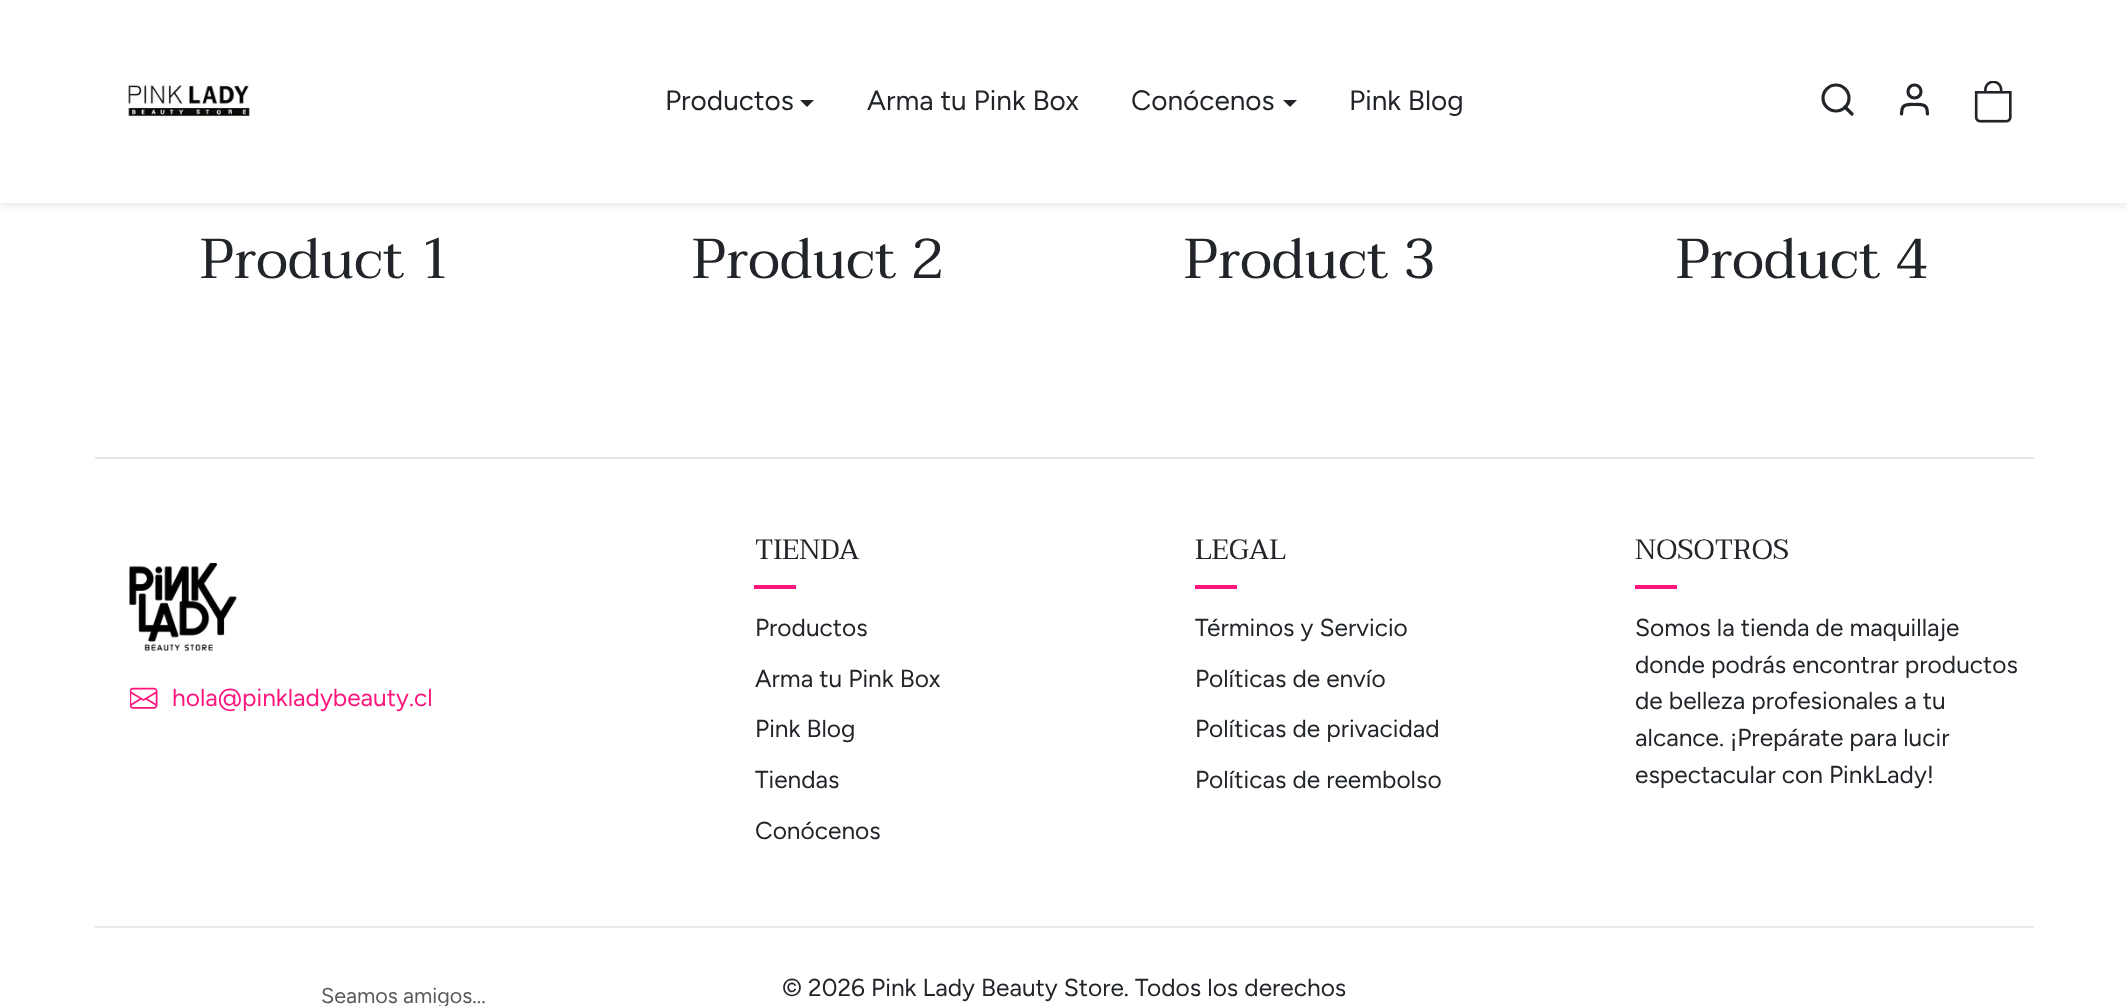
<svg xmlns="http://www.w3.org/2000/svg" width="2127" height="1006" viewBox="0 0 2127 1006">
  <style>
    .t1 { font: 28px Figtree; fill: #212529; }
    .t2 { font: 56px Taviraj; fill: #212529; }
    .t3 { font: 24.5px Figtree; fill: #ff157d; }
    .t4 { font: 28px Taviraj; fill: #212529; }
    .t5 { font: 24.5px Figtree; fill: #212529; }
    .t6 { font: 21.5px Figtree; fill: #595c5f; }
  </style>
  <rect width="100%" height="100%" fill="#fff"/>
  <rect x="0" y="4" width="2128" height="203" fill="#00000012" filter="blur(3.5px)"/>
  <rect x="0" y="0" width="2127" height="203" fill="#fff"/>
  <image x="128" y="83" width="122" height="36" href="images/1.png"/>
  <text x="665" y="110" class="t1">Productos</text>
  <path d="M800 100H814L807 107Z" fill="#212529"/>
  <text x="867" y="110" class="t1">Arma tu Pink Box</text>
  <text x="1131" y="110" class="t1">Conócenos</text>
  <path d="M1283 100H1297L1290 107Z" fill="#212529"/>
  <text x="1349" y="110" class="t1">Pink Blog</text>
  <circle cx="1836" cy="98" r="13" fill="none" stroke="#212529" stroke-width="3.2"/>
  <path d="M1852 114L1845 107" fill="none" stroke="#212529" stroke-width="3.2" stroke-linecap="round" stroke-linejoin="round"/>
  <path d="M1927.5 114L1927 109.5C1926 103.5 1919 104.5 1914.5 104.5C1910 104.5 1903 103.5 1902 109.5L1901.5 114" fill="none" stroke="#212529" stroke-width="3.2" stroke-linecap="round" stroke-linejoin="round"/>
  <circle cx="1914.5" cy="91.5" r="6.5" fill="none" stroke="#212529" stroke-width="3.2"/>
  <image x="1974" y="81" width="38" height="42" href="images/2.png"/>
  <text x="200" y="278" class="t2">Product 1</text>
  <text x="692" y="278" class="t2">Product 2</text>
  <text x="1184" y="278" class="t2">Product 3</text>
  <text x="1676" y="278" class="t2">Product 4</text>
  <rect x="95" y="457" width="1939" height="2" fill="#e6e6e6"/>
  <image x="129" y="563" width="108" height="88" href="images/3.png"/>
  <image x="130" y="687" width="28" height="22" href="images/4.png"/>
  <text x="172" y="706" class="t3">hola@pinkladybeauty.cl</text>
  <text x="755" y="559" class="t4">TIENDA</text>
  <rect x="754" y="585" width="42" height="4" fill="#ff157d"/>
  <text x="755" y="636" class="t5">Productos</text>
  <text x="755" y="687" class="t5">Arma tu Pink Box</text>
  <text x="755" y="737" class="t5">Pink Blog</text>
  <text x="755" y="788" class="t5">Tiendas</text>
  <text x="755" y="839" class="t5">Conócenos</text>
  <text x="1195" y="559" class="t4">LEGAL</text>
  <rect x="1195" y="585" width="42" height="4" fill="#ff157d"/>
  <text x="1195" y="636" class="t5">Términos y Servicio</text>
  <text x="1195" y="687" class="t5">Políticas de envío</text>
  <text x="1195" y="737" class="t5">Políticas de privacidad</text>
  <text x="1195" y="788" class="t5">Políticas de reembolso</text>
  <text x="1635" y="559" class="t4">NOSOTROS</text>
  <rect x="1635" y="585" width="42" height="4" fill="#ff157d"/>
  <text x="1635" y="636" class="t5">Somos la tienda de maquillaje</text>
  <text x="1635" y="673" class="t5">donde podrás encontrar productos</text>
  <text x="1635" y="709" class="t5">de belleza profesionales a tu</text>
  <text x="1635" y="746" class="t5">alcance. ¡Prepárate para lucir</text>
  <text x="1635" y="783" class="t5">espectacular con PinkLady!</text>
  <rect x="95" y="926" width="1939" height="2" fill="#e9e9ea"/>
  <text x="321" y="1003" class="t6">Seamos amigos...</text>
  <text x="782" y="996" class="t5">© 2026 Pink Lady Beauty Store. Todos los derechos</text>
</svg>
